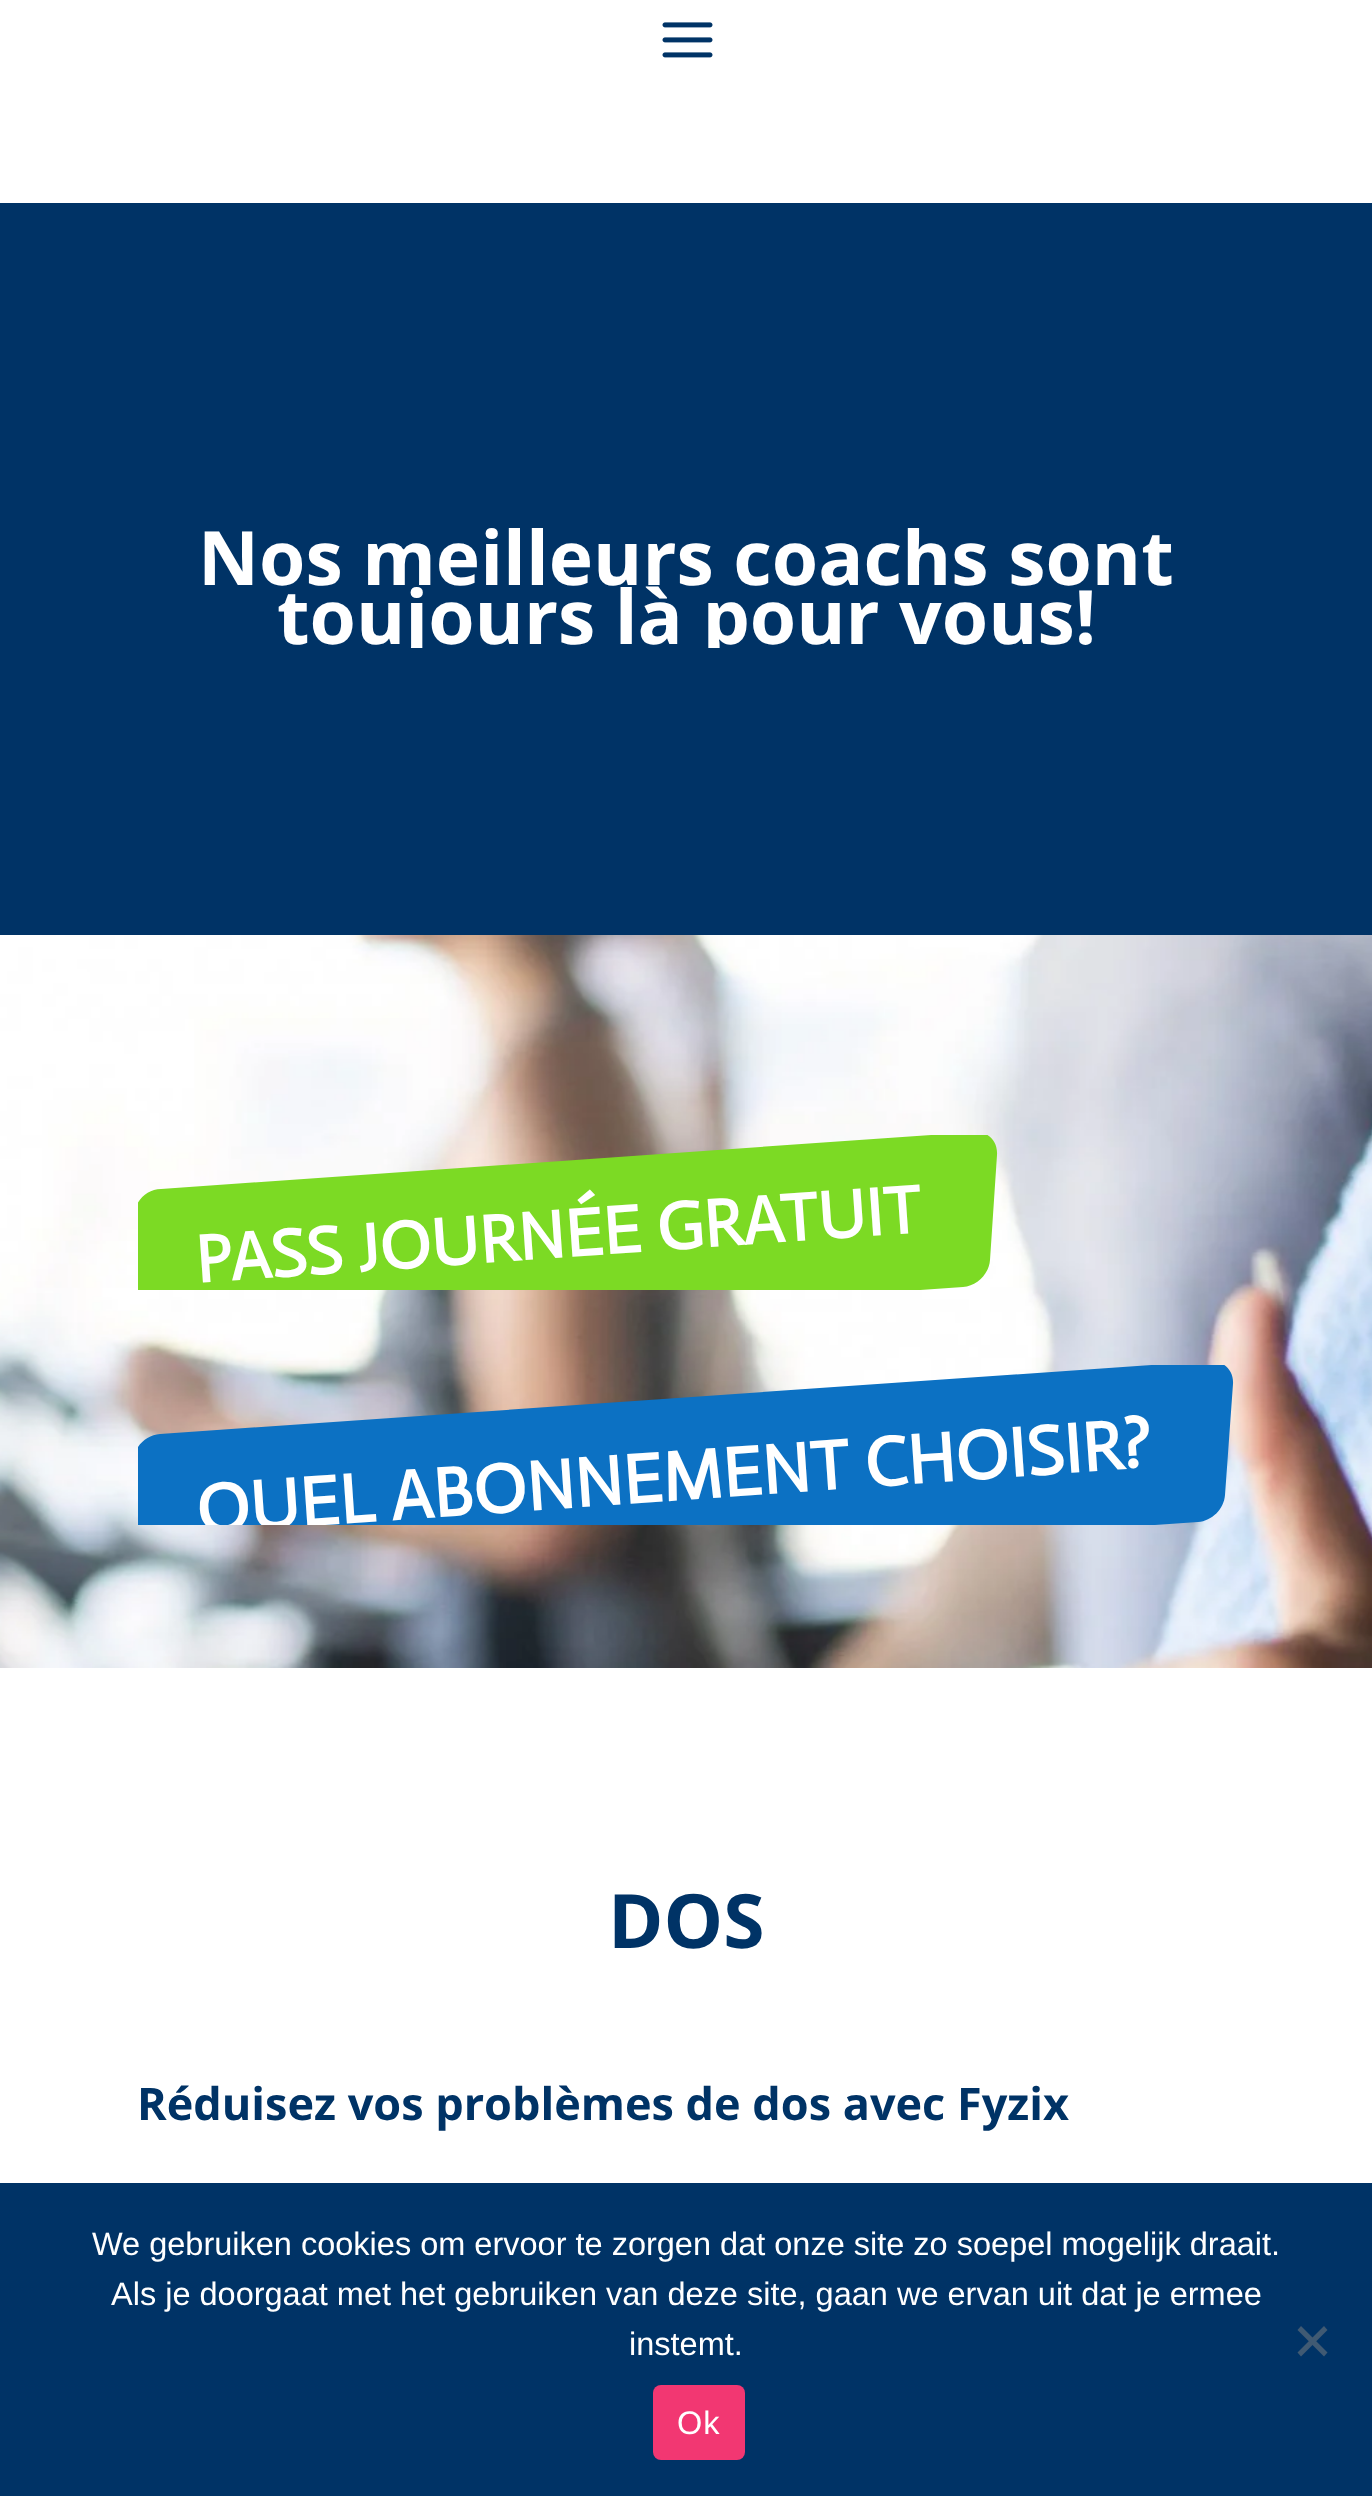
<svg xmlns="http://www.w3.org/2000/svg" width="1372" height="2496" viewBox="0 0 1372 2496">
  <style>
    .t1 { font: bold 75px Open Sans; fill: #fff; }
    .t2 { font: bold 67.75px Actor; fill: #fff; }
    .t3 { font: bold 70.2px Actor; fill: #fff; }
    .t4 { font: bold 75px Open Sans; fill: #036; }
    .t5 { font: bold 45px Open Sans; fill: #036; }
    .t6 { font: 32.5px Liberation Sans; fill: #fff; }
    .t7 { font: 32.5px Liberation Sans; letter-spacing: 1px; fill: #fff; }
  </style>
  <defs>
    <clipPath id="clip1"><rect x="138" y="528" width="1097" height="120"/></clipPath>
    <clipPath id="clip2"><rect x="138" y="1135" width="1097" height="155"/></clipPath>
    <clipPath id="clip3"><rect x="138" y="1365" width="1097" height="160"/></clipPath>
  </defs>
  <rect width="100%" height="100%" fill="#fff"/>
  <image x="662" y="22" width="51" height="36" href="images/1.png"/>
  <rect x="0" y="203" width="1372" height="732" fill="#036"/>
  <text x="198" y="585" class="t1">Nos meilleurs coachs sont</text>
  <g clip-path="url(#clip1)">
    <text x="277" y="644" class="t1">toujours là pour vous!</text>
  </g>
  <image x="0" y="935" width="1372" height="733" href="images/2.png"/>
  <g clip-path="url(#clip2)">
    <path d="M161 1189L974 1132C988 1131 998 1141 997 1155L990 1260C989 1274 977 1286 963 1287L150 1344C136 1345 126 1334 127 1320L134 1215C135 1201 147 1189 161 1189Z" fill="#7cda24"/>
  </g>
  <text x="197" y="1283" transform="rotate(-4 197 1283)" class="t2">PASS JOURNÉE GRATUIT</text>
  <g clip-path="url(#clip3)">
    <path d="M160 1434L1209 1361C1223 1360 1234 1370 1233 1384L1225 1495C1224 1509 1212 1521 1198 1522L149 1595C135 1596 124 1585 125 1572L133 1461C134 1447 146 1435 160 1434Z" fill="#0c71c3"/>
    <text x="198" y="1534" transform="rotate(-4 198 1534)" class="t3">QUEL ABONNEMENT CHOISIR?</text>
  </g>
  <text x="608" y="1948" class="t4">DOS</text>
  <text x="137" y="2120" class="t5">Réduisez vos problèmes de dos avec Fyzix</text>
  <rect x="0" y="2183" width="1372" height="313" fill="#036"/>
  <text x="92" y="2255" class="t6">We gebruiken cookies om ervoor te zorgen dat onze site zo soepel mogelijk draait.</text>
  <text x="111" y="2305" class="t6">Als je doorgaat met het gebruiken van deze site, gaan we ervan uit dat je ermee</text>
  <text x="629" y="2355" class="t6">instemt.</text>
  <path d="M1324 2326L1327.5 2330L1301 2356.5L1297.5 2352.5Z" fill="#405a73"/>
  <path d="M1297.5 2330L1301 2326L1327.5 2352.5L1324 2356.5Z" fill="#405a73"/>
  <rect x="653" y="2385" width="92" height="75" rx="8" fill="#f23772"/>
  <text x="677" y="2434" class="t7">Ok</text>
</svg>
